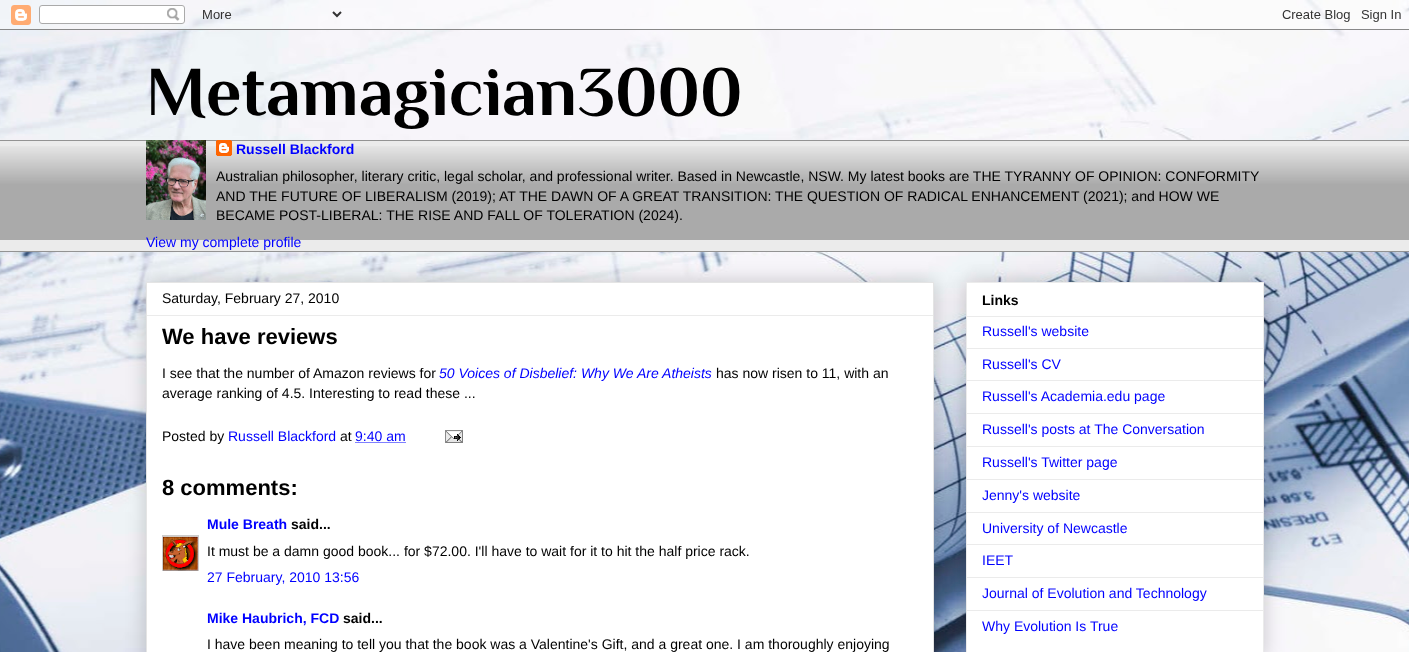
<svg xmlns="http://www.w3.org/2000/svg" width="1409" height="652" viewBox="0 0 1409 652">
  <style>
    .t1 { font: bold 70px Philosopher; fill: #000; }
    .t2 { font: bold 14px Liberation Sans; fill: #00f; }
    .t3 { font: 14px Liberation Sans; fill: #000; }
    .t4 { font: 14px Liberation Sans; fill: #00f; }
    .t5 { font: bold 22px Liberation Sans; fill: #000; }
    .t6 { font: italic 14px Liberation Sans; fill: #00f; }
    .t7 { font: bold 14px Liberation Sans; fill: #000; }
  </style>
  <defs>
    <clipPath id="clip1"><rect x="162" y="535" width="37" height="36"/></clipPath>
  </defs>
  <rect width="100%" height="100%" fill="#fff"/>
  <image x="0" y="0" width="1409" height="652" href="images/1.png"/>
  <image x="0" y="0" width="1409" height="30" href="images/2.png"/>
  <text x="146" y="115" class="t1">Metamagician3000</text>
  <rect x="0" y="141" width="1409" height="110" fill="#ebebeb"/>
  <image x="0" y="146" width="1409" height="94" href="images/3.png"/>
  <rect x="0" y="140" width="1409" height="1" fill="#939393"/>
  <image x="146" y="140" width="60" height="80" href="images/4.png"/>
  <image x="216" y="140" width="16" height="16" href="images/5.png"/>
  <text x="236" y="154" class="t2">Russell Blackford</text>
  <text x="216" y="181" class="t3">Australian philosopher, literary critic, legal scholar, and professional writer. Based in Newcastle, NSW. My latest books are THE TYRANNY OF OPINION: CONFORMITY</text>
  <text x="216" y="201" class="t3">AND THE FUTURE OF LIBERALISM (2019); AT THE DAWN OF A GREAT TRANSITION: THE QUESTION OF RADICAL ENHANCEMENT (2021); and HOW WE</text>
  <text x="216" y="220" class="t3">BECAME POST-LIBERAL: THE RISE AND FALL OF TOLERATION (2024).</text>
  <text x="146" y="247" class="t4">View my complete profile</text>
  <rect x="0" y="251" width="1409" height="1" fill="#939393"/>
  <rect x="146" y="282" width="788" height="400" fill="#00000033" filter="blur(10px)"/>
  <rect x="146.5" y="282.5" width="787" height="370" fill="#fff" stroke="#e4e4e4"/>
  <text x="162" y="303" class="t3">Saturday, February 27, 2010</text>
  <rect x="147" y="315" width="786" height="1" fill="#ebebeb"/>
  <text x="162" y="344" class="t5">We have reviews</text>
  <text x="162" y="378" class="t3">I see that the number of Amazon reviews for</text>
  <text x="439" y="378" class="t6">50 Voices of Disbelief: Why We Are Atheists</text>
  <text x="716" y="378" class="t3">has now risen to 11, with an</text>
  <text x="162" y="398" class="t3">average ranking of 4.5. Interesting to read these ...</text>
  <text x="162" y="441" class="t3">Posted by</text>
  <text x="228" y="441" class="t4">Russell Blackford</text>
  <text x="340" y="441" class="t3">at</text>
  <text x="355" y="441" class="t4">9:40 am</text>
  <path d="M355.5 442.5H406" fill="none" stroke="#00f" stroke-dasharray="1 1"/>
  <image x="445" y="430" width="18" height="13" href="images/6.png"/>
  <text x="162" y="495" class="t5">8 comments:</text>
  <text x="207" y="529" class="t2">Mule Breath</text>
  <text x="291" y="529" class="t7">said...</text>
  <g clip-path="url(#clip1)">
    <rect x="162.5" y="535.5" width="36" height="36" fill="none" stroke="#ccc"/>
  </g>
  <image x="163" y="536" width="35" height="35" href="images/7.png"/>
  <text x="207" y="556" class="t3">It must be a damn good book... for $72.00. I'll have to wait for it to hit the half price rack.</text>
  <text x="207" y="582" class="t4">27 February, 2010 13:56</text>
  <text x="207" y="623" class="t2">Mike Haubrich, FCD</text>
  <text x="343" y="623" class="t7">said...</text>
  <text x="207" y="649" class="t3">I have been meaning to tell you that the book was a Valentine's Gift, and a great one. I am thoroughly enjoying</text>
  <rect x="966" y="282" width="298" height="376" fill="#00000033" filter="blur(10px)"/>
  <rect x="966.5" y="282.5" width="297" height="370" fill="#fff" stroke="#ebebeb"/>
  <text x="982" y="305" class="t7">Links</text>
  <rect x="967" y="316" width="296" height="1" fill="#ebebeb"/>
  <text x="982" y="336" class="t4">Russell's website</text>
  <rect x="967" y="348" width="296" height="1" fill="#ebebeb"/>
  <text x="982" y="369" class="t4">Russell's CV</text>
  <rect x="967" y="380" width="296" height="1" fill="#ebebeb"/>
  <text x="982" y="401" class="t4">Russell's Academia.edu page</text>
  <rect x="967" y="413" width="296" height="1" fill="#ebebeb"/>
  <text x="982" y="434" class="t4">Russell's posts at The Conversation</text>
  <rect x="967" y="446" width="296" height="1" fill="#ebebeb"/>
  <text x="982" y="467" class="t4">Russell's Twitter page</text>
  <rect x="967" y="479" width="296" height="1" fill="#ebebeb"/>
  <text x="982" y="500" class="t4">Jenny's website</text>
  <rect x="967" y="512" width="296" height="1" fill="#ebebeb"/>
  <text x="982" y="533" class="t4">University of Newcastle</text>
  <rect x="967" y="544" width="296" height="1" fill="#ebebeb"/>
  <text x="982" y="565" class="t4">IEET</text>
  <rect x="967" y="577" width="296" height="1" fill="#ebebeb"/>
  <text x="982" y="598" class="t4">Journal of Evolution and Technology</text>
  <rect x="967" y="610" width="296" height="1" fill="#ebebeb"/>
  <text x="982" y="631" class="t4">Why Evolution Is True</text>
</svg>
